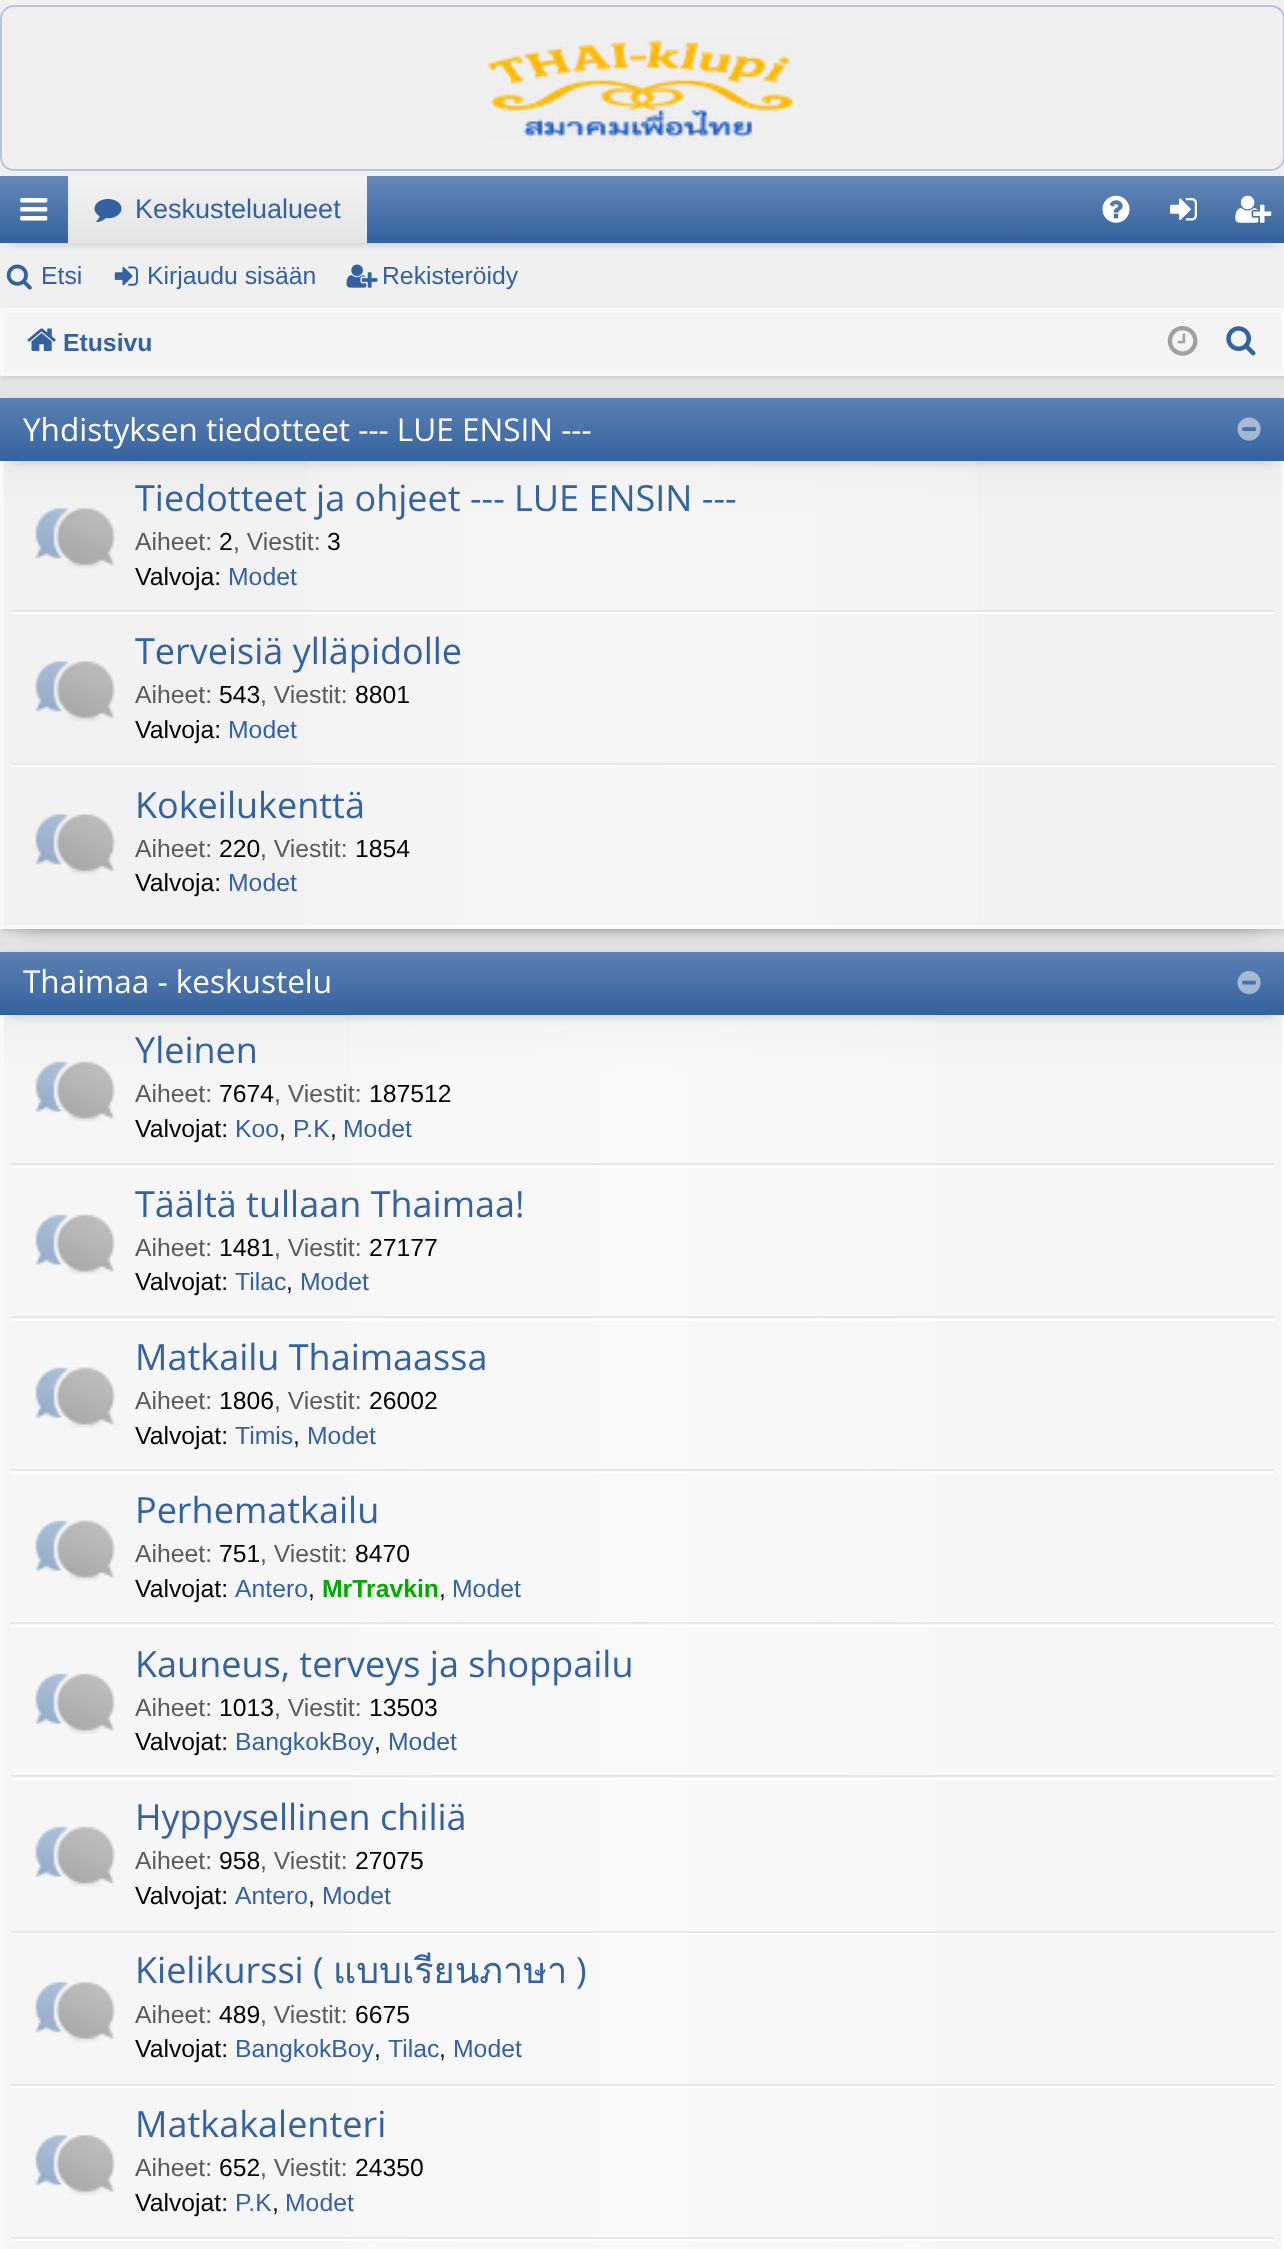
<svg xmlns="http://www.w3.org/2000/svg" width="1284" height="2249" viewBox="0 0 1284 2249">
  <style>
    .t1 { font: 27px Liberation Sans; fill: #3462a0; }
    .t2 { font: 24.75px Liberation Sans; fill: #3462a0; }
    .t3 { font: bold 24.75px Liberation Sans; fill: #3462a0; }
    .t4 { font: 31.5px Open Sans; fill: #fff; }
    .t5 { font: 36px Open Sans; fill: #3462a0; }
    .t6 { font: 24.75px Liberation Sans; fill: #5b5b5b; }
    .t7 { font: 24.75px Liberation Sans; fill: #000; }
    .t8 { font: 24.75px Liberation Sans; fill: #141414; }
    .t9 { font: bold 24.75px Liberation Sans; fill: #0a0; }
    .t10 { font: 36px Loma; fill: #3462a0; }
  </style>
  <defs>
    <linearGradient id="g1" gradientUnits="userSpaceOnUse" x1="642" y1="175" x2="642" y2="243"><stop offset="0" stop-color="#6789b8"/><stop offset="1" stop-color="#3462a0"/></linearGradient>
    <linearGradient id="g2" gradientUnits="userSpaceOnUse" x1="217" y1="175" x2="217" y2="243"><stop offset="0" stop-color="#f2f2f2"/><stop offset="1" stop-color="#e4e4e4"/></linearGradient>
    <linearGradient id="g3" gradientUnits="userSpaceOnUse" x1="642" y1="400" x2="642" y2="927"><stop offset="0" stop-color="#eaeaea"/><stop offset="0.04" stop-color="#e8e8e8"/><stop offset="0.21" stop-color="#f2f2f2"/></linearGradient>
    <linearGradient id="g4" gradientUnits="userSpaceOnUse" x1="2.2" y1="664" x2="1283" y2="664"><stop offset="0" stop-color="#fff" stop-opacity="0"/><stop offset="0.5" stop-color="#fff" stop-opacity="0.3"/><stop offset="1" stop-color="#fff" stop-opacity="0"/></linearGradient>
    <linearGradient id="g5" gradientUnits="userSpaceOnUse" x1="642" y1="398" x2="642" y2="461"><stop offset="0" stop-color="#5d81b3"/><stop offset="1" stop-color="#3462a0"/></linearGradient>
    <linearGradient id="g6" gradientUnits="userSpaceOnUse" x1="642" y1="954" x2="642" y2="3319"><stop offset="0" stop-color="#eee"/><stop offset="0.01" stop-color="#ebebeb"/><stop offset="0.05" stop-color="#f6f6f6"/></linearGradient>
    <linearGradient id="g7" gradientUnits="userSpaceOnUse" x1="2.2" y1="2136" x2="1283" y2="2136"><stop offset="0" stop-color="#fff" stop-opacity="0"/><stop offset="0.5" stop-color="#fff" stop-opacity="0.3"/><stop offset="1" stop-color="#fff" stop-opacity="0"/></linearGradient>
    <linearGradient id="g8" gradientUnits="userSpaceOnUse" x1="642" y1="952" x2="642" y2="1015"><stop offset="0" stop-color="#5d81b3"/><stop offset="1" stop-color="#3462a0"/></linearGradient>
  </defs>
  <rect width="100%" height="100%" fill="#f0f0f0"/>
  <rect x="1" y="6" width="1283" height="164" rx="13" fill="none" stroke="#b8c5d8" stroke-width="2"/>
  <image x="487" y="37" width="308" height="104" href="images/1.png"/>
  <rect x="11" y="198" width="1263" height="45" fill="#00000033" filter="blur(5.5px)"/>
  <rect x="0" y="176" width="1284" height="67" fill="url(#g1)"/>
  <image x="20" y="198" width="28" height="23" href="images/2.png"/>
  <rect x="68" y="176" width="299" height="67" fill="url(#g2)"/>
  <image x="94" y="199" width="28" height="24" href="images/3.png"/>
  <text x="135" y="218" class="t1">Keskustelualueet</text>
  <image x="1102" y="195" width="28" height="28" href="images/4.png"/>
  <image x="1170" y="198" width="27" height="23" href="images/5.png"/>
  <image x="1235" y="195" width="37" height="28" href="images/6.png"/>
  <image x="6" y="264" width="26" height="26" href="images/7.png"/>
  <text x="41" y="284" class="t2">Etsi</text>
  <image x="114" y="266" width="24" height="20" href="images/8.png"/>
  <text x="147" y="284" class="t2">Kirjaudu sisään</text>
  <image x="346" y="264" width="32" height="24" href="images/9.png"/>
  <text x="382" y="284" class="t2">Rekisteröidy</text>
  <rect x="0" y="376" width="1284" height="576" fill="#e4e4e4"/>
  <rect x="2" y="311" width="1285" height="67" fill="#0000001a" filter="blur(2px)"/>
  <rect x="2" y="310" width="1281" height="62" fill="#f4f4f4"/>
  <rect x="3" y="312" width="1279" height="61" fill="none" stroke="#fafafa" stroke-width="2"/>
  <rect x="1" y="309" width="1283" height="66" fill="none" stroke="#f9f9f9" stroke-width="2"/>
  <image x="27" y="328" width="29" height="23" href="images/10.png"/>
  <text x="63" y="351" class="t3">Etusivu</text>
  <image x="1167" y="326" width="31" height="30" href="images/11.png"/>
  <image x="1226" y="326" width="30" height="30" href="images/12.png"/>
  <rect x="23" y="443" width="1239" height="486" fill="#00000033" filter="blur(11px)"/>
  <rect x="2" y="401" width="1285" height="531" fill="#00000026" filter="blur(3.5px)"/>
  <rect x="2" y="461" width="1281" height="466" fill="url(#g3)"/>
  <rect x="308" y="461" width="669" height="466" fill="url(#g4)"/>
  <rect x="3" y="402" width="1279" height="524" fill="none" stroke="#ffffff80" stroke-width="2"/>
  <rect x="1" y="399" width="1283" height="529" fill="none" stroke="#f9f9f9" stroke-width="2"/>
  <rect x="11" y="421" width="1263" height="40" fill="#00000033" filter="blur(5.5px)"/>
  <rect x="0" y="398" width="1284" height="63" fill="url(#g5)"/>
  <text x="23" y="441" class="t4">Yhdistyksen tiedotteet --- LUE ENSIN ---</text>
  <image x="1237" y="417" width="24" height="24" href="images/13.png"/>
  <rect x="11" y="610" width="1263" height="2" fill="#e7e7e7"/>
  <image x="35" y="508" width="80" height="61" href="images/14.png"/>
  <text x="135" y="511" class="t5">Tiedotteet ja ohjeet --- LUE ENSIN ---</text>
  <text x="135" y="550" class="t6">Aiheet:</text>
  <text x="219" y="550" class="t7">2</text>
  <text x="233" y="550" class="t6">, Viestit:</text>
  <text x="327" y="550" class="t7">3</text>
  <text x="135" y="585" class="t7">Valvoja:</text>
  <text x="228" y="585" class="t2">Modet</text>
  <rect x="11" y="612" width="1263" height="2" fill="#fff"/>
  <rect x="11" y="763" width="1263" height="2" fill="#e7e7e7"/>
  <image x="35" y="661" width="80" height="61" href="images/14.png"/>
  <text x="135" y="664" class="t5">Terveisiä ylläpidolle</text>
  <text x="135" y="703" class="t6">Aiheet:</text>
  <text x="219" y="703" class="t7">543</text>
  <text x="260" y="703" class="t6">, Viestit:</text>
  <text x="355" y="703" class="t7">8801</text>
  <text x="135" y="738" class="t7">Valvoja:</text>
  <text x="228" y="738" class="t2">Modet</text>
  <rect x="11" y="765" width="1263" height="2" fill="#fff"/>
  <image x="35" y="814" width="80" height="61" href="images/15.png"/>
  <text x="135" y="818" class="t5">Kokeilukenttä</text>
  <text x="135" y="857" class="t6">Aiheet:</text>
  <text x="219" y="857" class="t7">220</text>
  <text x="260" y="857" class="t6">, Viestit:</text>
  <text x="355" y="857" class="t7">1854</text>
  <text x="135" y="891" class="t7">Valvoja:</text>
  <text x="228" y="891" class="t2">Modet</text>
  <rect x="2" y="954" width="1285" height="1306" fill="#00000026" filter="blur(3.5px)"/>
  <rect x="2" y="1015" width="1281" height="1234" fill="url(#g6)"/>
  <rect x="350" y="1015" width="586" height="1234" fill="url(#g7)"/>
  <rect x="3" y="955" width="1279" height="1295" fill="none" stroke="#ffffff80" stroke-width="2"/>
  <rect x="1" y="953" width="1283" height="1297" fill="none" stroke="#f9f9f9" stroke-width="2"/>
  <rect x="11" y="974" width="1263" height="41" fill="#00000033" filter="blur(5.5px)"/>
  <rect x="0" y="952" width="1284" height="63" fill="url(#g8)"/>
  <text x="23" y="993" class="t4">Thaimaa - keskustelu</text>
  <image x="1237" y="971" width="24" height="24" href="images/16.png"/>
  <rect x="11" y="1163" width="1263" height="2" fill="#e7e7e7"/>
  <image x="35" y="1061" width="80" height="61" href="images/17.png"/>
  <text x="135" y="1063" class="t5">Yleinen</text>
  <text x="135" y="1102" class="t6">Aiheet:</text>
  <text x="219" y="1102" class="t7">7674</text>
  <text x="274" y="1102" class="t6">, Viestit:</text>
  <text x="369" y="1102" class="t7">187512</text>
  <text x="135" y="1137" class="t7">Valvojat:</text>
  <text x="235" y="1137" class="t2">Koo</text>
  <text x="279" y="1137" class="t8">,</text>
  <text x="293" y="1137" class="t2">P.K</text>
  <text x="330" y="1137" class="t8">,</text>
  <text x="343" y="1137" class="t2">Modet</text>
  <rect x="11" y="1166" width="1263" height="2" fill="#fff"/>
  <rect x="11" y="1316" width="1263" height="2" fill="#e7e7e7"/>
  <image x="35" y="1214" width="80" height="61" href="images/18.png"/>
  <text x="135" y="1217" class="t5">Täältä tullaan Thaimaa!</text>
  <text x="135" y="1256" class="t6">Aiheet:</text>
  <text x="219" y="1256" class="t7">1481</text>
  <text x="274" y="1256" class="t6">, Viestit:</text>
  <text x="369" y="1256" class="t7">27177</text>
  <text x="135" y="1290" class="t7">Valvojat:</text>
  <text x="235" y="1290" class="t2">Tilac</text>
  <text x="286" y="1290" class="t8">,</text>
  <text x="300" y="1290" class="t2">Modet</text>
  <rect x="11" y="1319" width="1263" height="2" fill="#fff"/>
  <rect x="11" y="1469" width="1263" height="2" fill="#e7e7e7"/>
  <image x="35" y="1367" width="80" height="61" href="images/18.png"/>
  <text x="135" y="1370" class="t5">Matkailu Thaimaassa</text>
  <text x="135" y="1409" class="t6">Aiheet:</text>
  <text x="219" y="1409" class="t7">1806</text>
  <text x="274" y="1409" class="t6">, Viestit:</text>
  <text x="369" y="1409" class="t7">26002</text>
  <text x="135" y="1444" class="t7">Valvojat:</text>
  <text x="235" y="1444" class="t2">Timis</text>
  <text x="293" y="1444" class="t8">,</text>
  <text x="307" y="1444" class="t2">Modet</text>
  <rect x="11" y="1472" width="1263" height="2" fill="#fff"/>
  <rect x="11" y="1622" width="1263" height="2" fill="#e7e7e7"/>
  <image x="35" y="1520" width="80" height="61" href="images/18.png"/>
  <text x="135" y="1523" class="t5">Perhematkailu</text>
  <text x="135" y="1562" class="t6">Aiheet:</text>
  <text x="219" y="1562" class="t7">751</text>
  <text x="260" y="1562" class="t6">, Viestit:</text>
  <text x="355" y="1562" class="t7">8470</text>
  <text x="135" y="1597" class="t7">Valvojat:</text>
  <text x="235" y="1597" class="t2">Antero</text>
  <text x="308" y="1597" class="t8">,</text>
  <text x="322" y="1597" class="t9">MrTravkin</text>
  <text x="439" y="1597" class="t8">,</text>
  <text x="452" y="1597" class="t2">Modet</text>
  <rect x="11" y="1625" width="1263" height="2" fill="#fff"/>
  <rect x="11" y="1775" width="1263" height="2" fill="#e7e7e7"/>
  <image x="35" y="1673" width="80" height="61" href="images/19.png"/>
  <text x="135" y="1677" class="t5">Kauneus, terveys ja shoppailu</text>
  <text x="135" y="1716" class="t6">Aiheet:</text>
  <text x="219" y="1716" class="t7">1013</text>
  <text x="274" y="1716" class="t6">, Viestit:</text>
  <text x="369" y="1716" class="t7">13503</text>
  <text x="135" y="1750" class="t7">Valvojat:</text>
  <text x="235" y="1750" class="t2">BangkokBoy</text>
  <text x="374" y="1750" class="t8">,</text>
  <text x="388" y="1750" class="t2">Modet</text>
  <rect x="11" y="1778" width="1263" height="2" fill="#fff"/>
  <rect x="11" y="1931" width="1263" height="2" fill="#e7e7e7"/>
  <image x="35" y="1826" width="80" height="61" href="images/18.png"/>
  <text x="135" y="1830" class="t5">Hyppysellinen chiliä</text>
  <text x="135" y="1869" class="t6">Aiheet:</text>
  <text x="219" y="1869" class="t7">958</text>
  <text x="260" y="1869" class="t6">, Viestit:</text>
  <text x="355" y="1869" class="t7">27075</text>
  <text x="135" y="1904" class="t7">Valvojat:</text>
  <text x="235" y="1904" class="t2">Antero</text>
  <text x="308" y="1904" class="t8">,</text>
  <text x="322" y="1904" class="t2">Modet</text>
  <rect x="11" y="1933" width="1263" height="2" fill="#fff"/>
  <rect x="11" y="2084" width="1263" height="2" fill="#e7e7e7"/>
  <image x="35" y="1981" width="80" height="62" href="images/20.png"/>
  <text x="135" y="1983" class="t5">Kielikurssi (</text>
  <text x="333" y="1983" class="t10">แบบเรียนภาษา</text>
  <text x="576" y="1983" class="t5">)</text>
  <text x="135" y="2023" class="t6">Aiheet:</text>
  <text x="219" y="2023" class="t7">489</text>
  <text x="260" y="2023" class="t6">, Viestit:</text>
  <text x="355" y="2023" class="t7">6675</text>
  <text x="135" y="2057" class="t7">Valvojat:</text>
  <text x="235" y="2057" class="t2">BangkokBoy</text>
  <text x="374" y="2057" class="t8">,</text>
  <text x="388" y="2057" class="t2">Tilac</text>
  <text x="439" y="2057" class="t8">,</text>
  <text x="453" y="2057" class="t2">Modet</text>
  <rect x="11" y="2086" width="1263" height="2" fill="#fff"/>
  <rect x="11" y="2237" width="1263" height="2" fill="#e7e7e7"/>
  <image x="35" y="2134" width="80" height="62" href="images/20.png"/>
  <text x="135" y="2137" class="t5">Matkakalenteri</text>
  <text x="135" y="2176" class="t6">Aiheet:</text>
  <text x="219" y="2176" class="t7">652</text>
  <text x="260" y="2176" class="t6">, Viestit:</text>
  <text x="355" y="2176" class="t7">24350</text>
  <text x="135" y="2211" class="t7">Valvojat:</text>
  <text x="235" y="2211" class="t2">P.K</text>
  <text x="272" y="2211" class="t8">,</text>
  <text x="285" y="2211" class="t2">Modet</text>
  <rect x="11" y="2239" width="1263" height="2" fill="#fff"/>
</svg>
